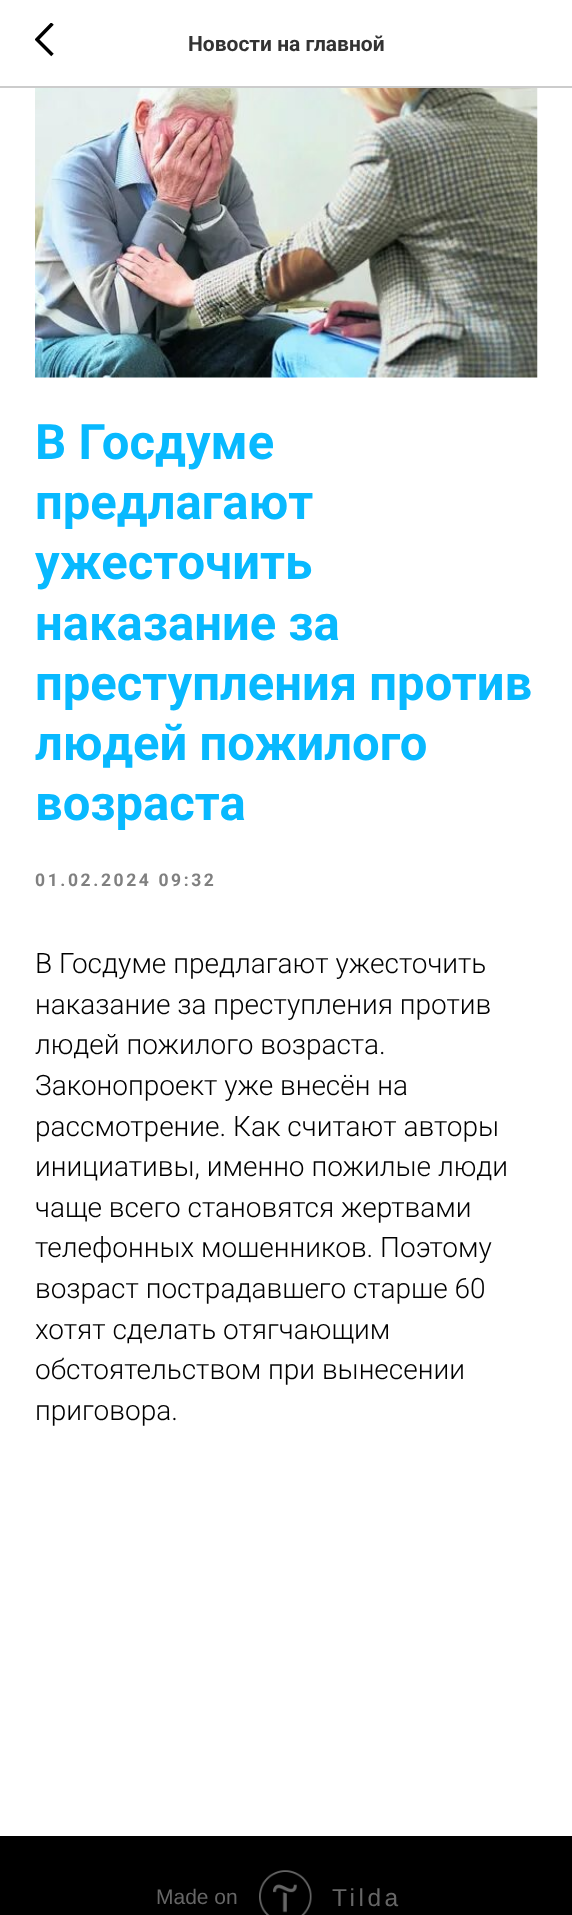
<svg xmlns="http://www.w3.org/2000/svg" width="572" height="1915" viewBox="0 0 572 1915">
  <style>
    .t1 { font: bold 21px Roboto; fill: #333; }
    .t2 { font: bold 49px Roboto; fill: #08b9ff; }
    .t3 { font: bold 17.5px Roboto; letter-spacing: 2.6px; fill: #808080; }
    .t4 { font: 300 28px Roboto; fill: #000; }
    .t5 { font: 21px Liberation Sans; fill: #666; }
    .t6 { font: 24.5px Liberation Sans; letter-spacing: 3.5px; fill: #666; }
  </style>
  <defs>
    <clipPath id="clip1"><rect x="35" y="23" width="19" height="35"/></clipPath>
  </defs>
  <rect width="100%" height="100%" fill="#fff"/>
  <rect x="0" y="86" width="572" height="2" fill="#ccc"/>
  <g clip-path="url(#clip1)">
    <path d="M52.5 55L37 39.5L52.5 23.5" fill="none" stroke="#000" stroke-width="3.5"/>
  </g>
  <text x="188" y="51" class="t1">Новости на главной</text>
  <image x="35" y="88" width="503" height="290" href="images/1.png"/>
  <text x="35" y="459" class="t2">В Госдуме</text>
  <text x="35" y="519" class="t2">предлагают</text>
  <text x="35" y="579" class="t2">ужесточить</text>
  <text x="35" y="640" class="t2">наказание за</text>
  <text x="35" y="700" class="t2">преступления против</text>
  <text x="35" y="760" class="t2">людей пожилого</text>
  <text x="35" y="820" class="t2">возраста</text>
  <text x="35" y="886" class="t3">01.02.2024 09:32</text>
  <text x="35" y="973" class="t4">В Госдуме предлагают ужесточить</text>
  <text x="35" y="1014" class="t4">наказание за преступления против</text>
  <text x="35" y="1054" class="t4">людей пожилого возраста.</text>
  <text x="35" y="1095" class="t4">Законопроект уже внесён на</text>
  <text x="35" y="1136" class="t4">рассмотрение. Как считают авторы</text>
  <text x="35" y="1176" class="t4">инициативы, именно пожилые люди</text>
  <text x="35" y="1217" class="t4">чаще всего становятся жертвами</text>
  <text x="35" y="1257" class="t4">телефонных мошенников. Поэтому</text>
  <text x="35" y="1298" class="t4">возраст пострадавшего старше 60</text>
  <text x="35" y="1339" class="t4">хотят сделать отягчающим</text>
  <text x="35" y="1379" class="t4">обстоятельством при вынесении</text>
  <text x="35" y="1420" class="t4">приговора.</text>
  <rect x="0" y="1836" width="572" height="79" fill="#000"/>
  <text x="156" y="1904" class="t5">Made on</text>
  <image x="259" y="1870" width="53" height="45" href="images/2.png"/>
  <text x="332" y="1906" class="t6">Tilda</text>
</svg>
